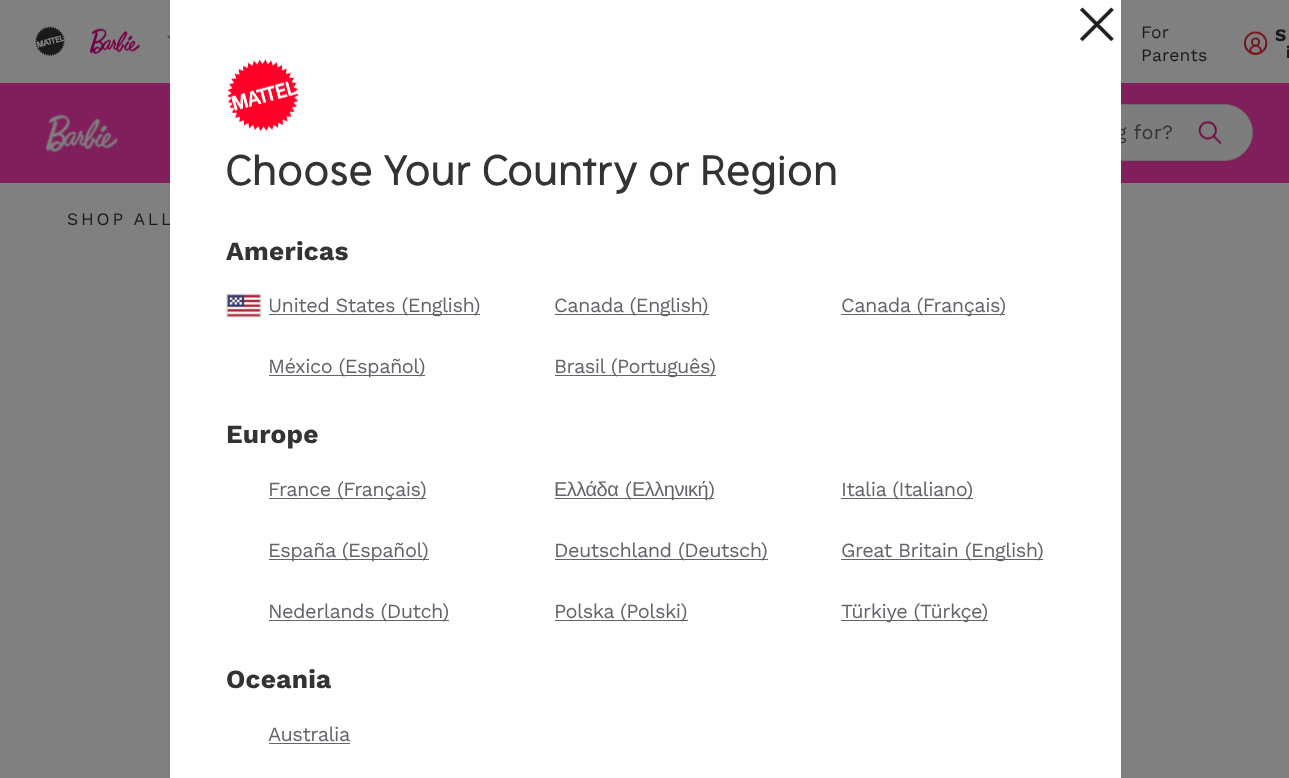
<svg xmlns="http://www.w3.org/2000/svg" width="1289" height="778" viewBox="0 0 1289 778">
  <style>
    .t1 { font: 17.5px Work Sans; letter-spacing: 0.25px; fill: #1a1a1a; }
    .t2 { font: bold 17.5px Work Sans; letter-spacing: 0.25px; fill: #1a1a1a; }
    .t3 { font: 20px Work Sans; letter-spacing: 0.25px; fill: #313335; }
    .t4 { font: 17.5px Work Sans; letter-spacing: 2.75px; fill: #1a1a1a; }
    .t5 { font: 45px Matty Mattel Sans; letter-spacing: 0.4px; fill: #313335; }
    .t6 { font: bold 26.25px Work Sans; letter-spacing: 0.25px; fill: #313335; }
    .t7 { font: 20px Work Sans; letter-spacing: -0.5px; fill: #62656a; }
    .t8 { font: 20px Liberation Sans; letter-spacing: -0.5px; fill: #62656a; }
  </style>
  <rect width="100%" height="100%" fill="#808080"/>
  <image x="35" y="26" width="30" height="30" href="images/1.png"/>
  <image x="90" y="28" width="50" height="26" href="images/2.png"/>
  <image x="167" y="33" width="3" height="7" href="images/3.png"/>
  <text x="1141" y="38" class="t1">For</text>
  <text x="1141" y="61" class="t1">Parents</text>
  <image x="1244" y="30" width="24" height="26" href="images/4.png"/>
  <text x="1275" y="41" class="t2">S</text>
  <text x="1286" y="58" class="t2">i</text>
  <rect x="0" y="83" width="1289" height="100" fill="#801f5b"/>
  <image x="45" y="114" width="73" height="39" href="images/5.png"/>
  <rect x="891.5" y="104.5" width="361" height="56" rx="28" fill="#7d7d7d" stroke="#6e6e6e"/>
  <text x="1116" y="139" class="t3">g for?</text>
  <image x="1198" y="120" width="24" height="24" href="images/6.png"/>
  <text x="67" y="225" class="t4">SHOP ALL</text>
  <rect x="170" y="0" width="951" height="778" fill="#fff"/>
  <image x="1079" y="7" width="36" height="35" href="images/7.png"/>
  <image x="227" y="59" width="72" height="73" href="images/8.png"/>
  <text x="226" y="185" class="t5">Choose Your Country or Region</text>
  <text x="226" y="260" class="t6">Americas</text>
  <image x="226" y="293" width="36" height="25" href="images/9.png"/>
  <rect x="269" y="314" width="211" height="1" fill="#62656a"/>
  <text x="268" y="312" class="t7">United States (English)</text>
  <rect x="555" y="314" width="154" height="1" fill="#62656a"/>
  <text x="554" y="312" class="t7">Canada (English)</text>
  <rect x="841" y="314" width="164" height="1" fill="#62656a"/>
  <text x="841" y="312" class="t7">Canada (Français)</text>
  <rect x="269" y="375" width="156" height="1" fill="#62656a"/>
  <text x="268" y="373" class="t7">México (Español)</text>
  <rect x="555" y="375" width="161" height="1" fill="#62656a"/>
  <text x="554" y="373" class="t7">Brasil (Português)</text>
  <text x="226" y="443" class="t6">Europe</text>
  <rect x="269" y="498" width="157" height="1" fill="#62656a"/>
  <text x="268" y="496" class="t7">France (Français)</text>
  <text x="554" y="496" class="t8">Ελλάδα</text>
  <rect x="555" y="498" width="159" height="1" fill="#62656a"/>
  <text x="625" y="496" class="t7">(</text>
  <text x="632" y="496" class="t8">Ελληνική</text>
  <text x="708" y="496" class="t7">)</text>
  <rect x="841" y="498" width="132" height="1" fill="#62656a"/>
  <text x="841" y="496" class="t7">Italia (Italiano)</text>
  <rect x="269" y="559" width="160" height="1" fill="#62656a"/>
  <text x="268" y="557" class="t7">España (Español)</text>
  <rect x="555" y="559" width="213" height="1" fill="#62656a"/>
  <text x="554" y="557" class="t7">Deutschland (Deutsch)</text>
  <rect x="841" y="559" width="202" height="1" fill="#62656a"/>
  <text x="841" y="557" class="t7">Great Britain (English)</text>
  <rect x="269" y="620" width="180" height="1" fill="#62656a"/>
  <text x="268" y="618" class="t7">Nederlands (Dutch)</text>
  <rect x="555" y="620" width="133" height="1" fill="#62656a"/>
  <text x="554" y="618" class="t7">Polska (Polski)</text>
  <rect x="841" y="620" width="147" height="1" fill="#62656a"/>
  <text x="841" y="618" class="t7">Türkiye (Türkçe)</text>
  <text x="226" y="688" class="t6">Oceania</text>
  <text x="268" y="741" class="t7">Australia</text>
  <rect x="269" y="743" width="81" height="1" fill="#62656a"/>
</svg>
